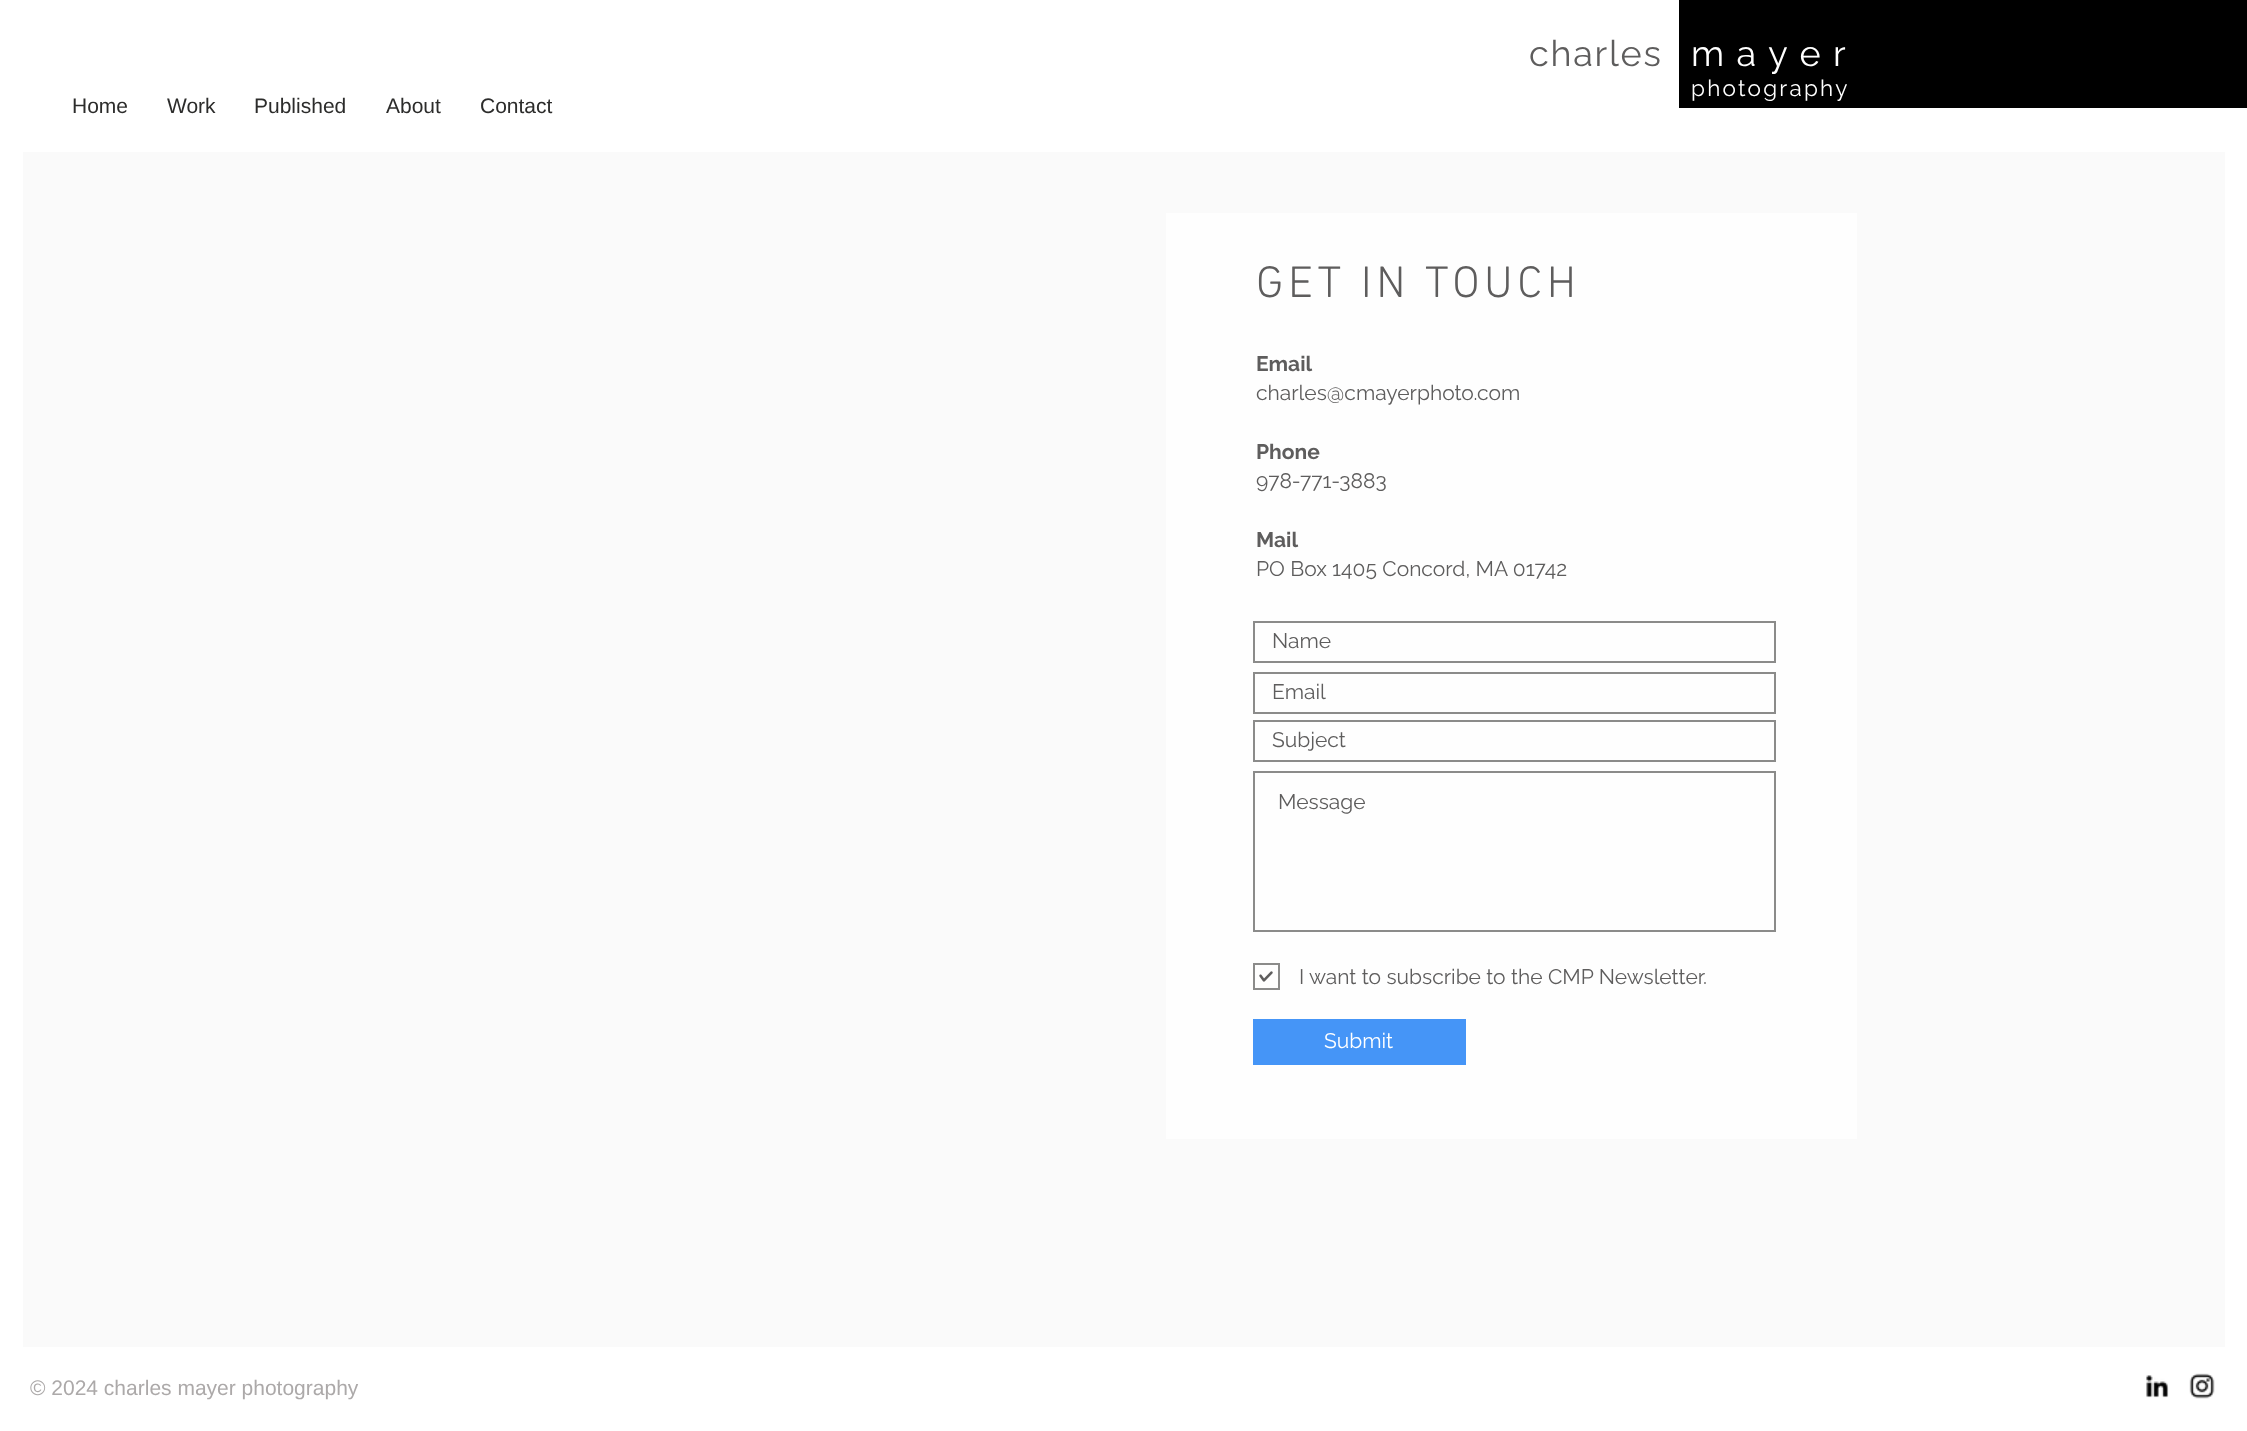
<svg xmlns="http://www.w3.org/2000/svg" width="2247" height="1431" viewBox="0 0 2247 1431">
  <style>
    .t1 { font: 36px Raleway; letter-spacing: 1.75px; fill: #5e5d5d; }
    .t2 { font: 36px Raleway; letter-spacing: 12.5px; fill: #fff; }
    .t3 { font: 22.5px Raleway; letter-spacing: 2.25px; fill: #fff; }
    .t4 { font: 21px Liberation Sans; fill: #2c2c2b; }
    .t5 { font: 300 45px 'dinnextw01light'; letter-spacing: 4.5px; fill: #5e5d5d; }
    .t6 { font: bold 21px Raleway; fill: #5e5d5d; }
    .t7 { font: 21px Raleway; fill: #5e5d5d; }
    .t8 { font: 21px Raleway; fill: #fff; }
    .t9 { font: 21px Liberation Sans; fill: #aca9a9; }
  </style>
  <rect width="100%" height="100%" fill="#fff"/>
  <text x="1529" y="66" class="t1">charles</text>
  <rect x="1679" y="0" width="568" height="108" fill="#000"/>
  <text x="1691" y="66" class="t2">mayer</text>
  <text x="1691" y="96" class="t3">photography</text>
  <text x="72" y="113" class="t4">Home</text>
  <text x="167" y="113" class="t4">Work</text>
  <text x="254" y="113" class="t4">Published</text>
  <text x="386" y="113" class="t4">About</text>
  <text x="480" y="113" class="t4">Contact</text>
  <rect x="23" y="152" width="2202" height="1195" fill="#fafafa"/>
  <rect x="1166" y="213" width="691" height="926" fill="#fefefe"/>
  <text x="1256" y="297" class="t5">GET IN TOUCH</text>
  <text x="1256" y="371" class="t6">Email</text>
  <text x="1256" y="400" class="t7">charles@cmayerphoto.com</text>
  <text x="1256" y="459" class="t6">Phone</text>
  <text x="1256" y="488" class="t7">978-771-3883</text>
  <text x="1256" y="547" class="t6">Mail</text>
  <text x="1256" y="576" class="t7">PO Box 1405 Concord, MA 01742</text>
  <rect x="1254" y="622" width="521" height="40" fill="none" stroke="#8b8b8a" stroke-width="2"/>
  <text x="1272" y="648" class="t7">Name</text>
  <rect x="1254" y="673" width="521" height="40" fill="none" stroke="#8b8b8a" stroke-width="2"/>
  <text x="1272" y="699" class="t7">Email</text>
  <rect x="1254" y="721" width="521" height="40" fill="none" stroke="#8b8b8a" stroke-width="2"/>
  <text x="1272" y="747" class="t7">Subject</text>
  <rect x="1254" y="772" width="521" height="159" fill="none" stroke="#8b8b8a" stroke-width="2"/>
  <text x="1278" y="809" class="t7">Message</text>
  <rect x="1254" y="964" width="25" height="25" fill="none" stroke="#8b8b8a" stroke-width="2"/>
  <text x="1299" y="984" class="t7">I want to subscribe to the CMP Newsletter.</text>
  <image x="1259" y="971" width="14" height="11" href="images/1.png"/>
  <rect x="1253" y="1019" width="213" height="46" fill="#4595f7"/>
  <text x="1324" y="1048" class="t8">Submit</text>
  <text x="30" y="1395" class="t9">© 2024 charles mayer photography</text>
  <image x="2146" y="1375" width="23" height="23" href="images/2.png"/>
  <image x="2189" y="1373" width="26" height="26" href="images/3.png"/>
</svg>
